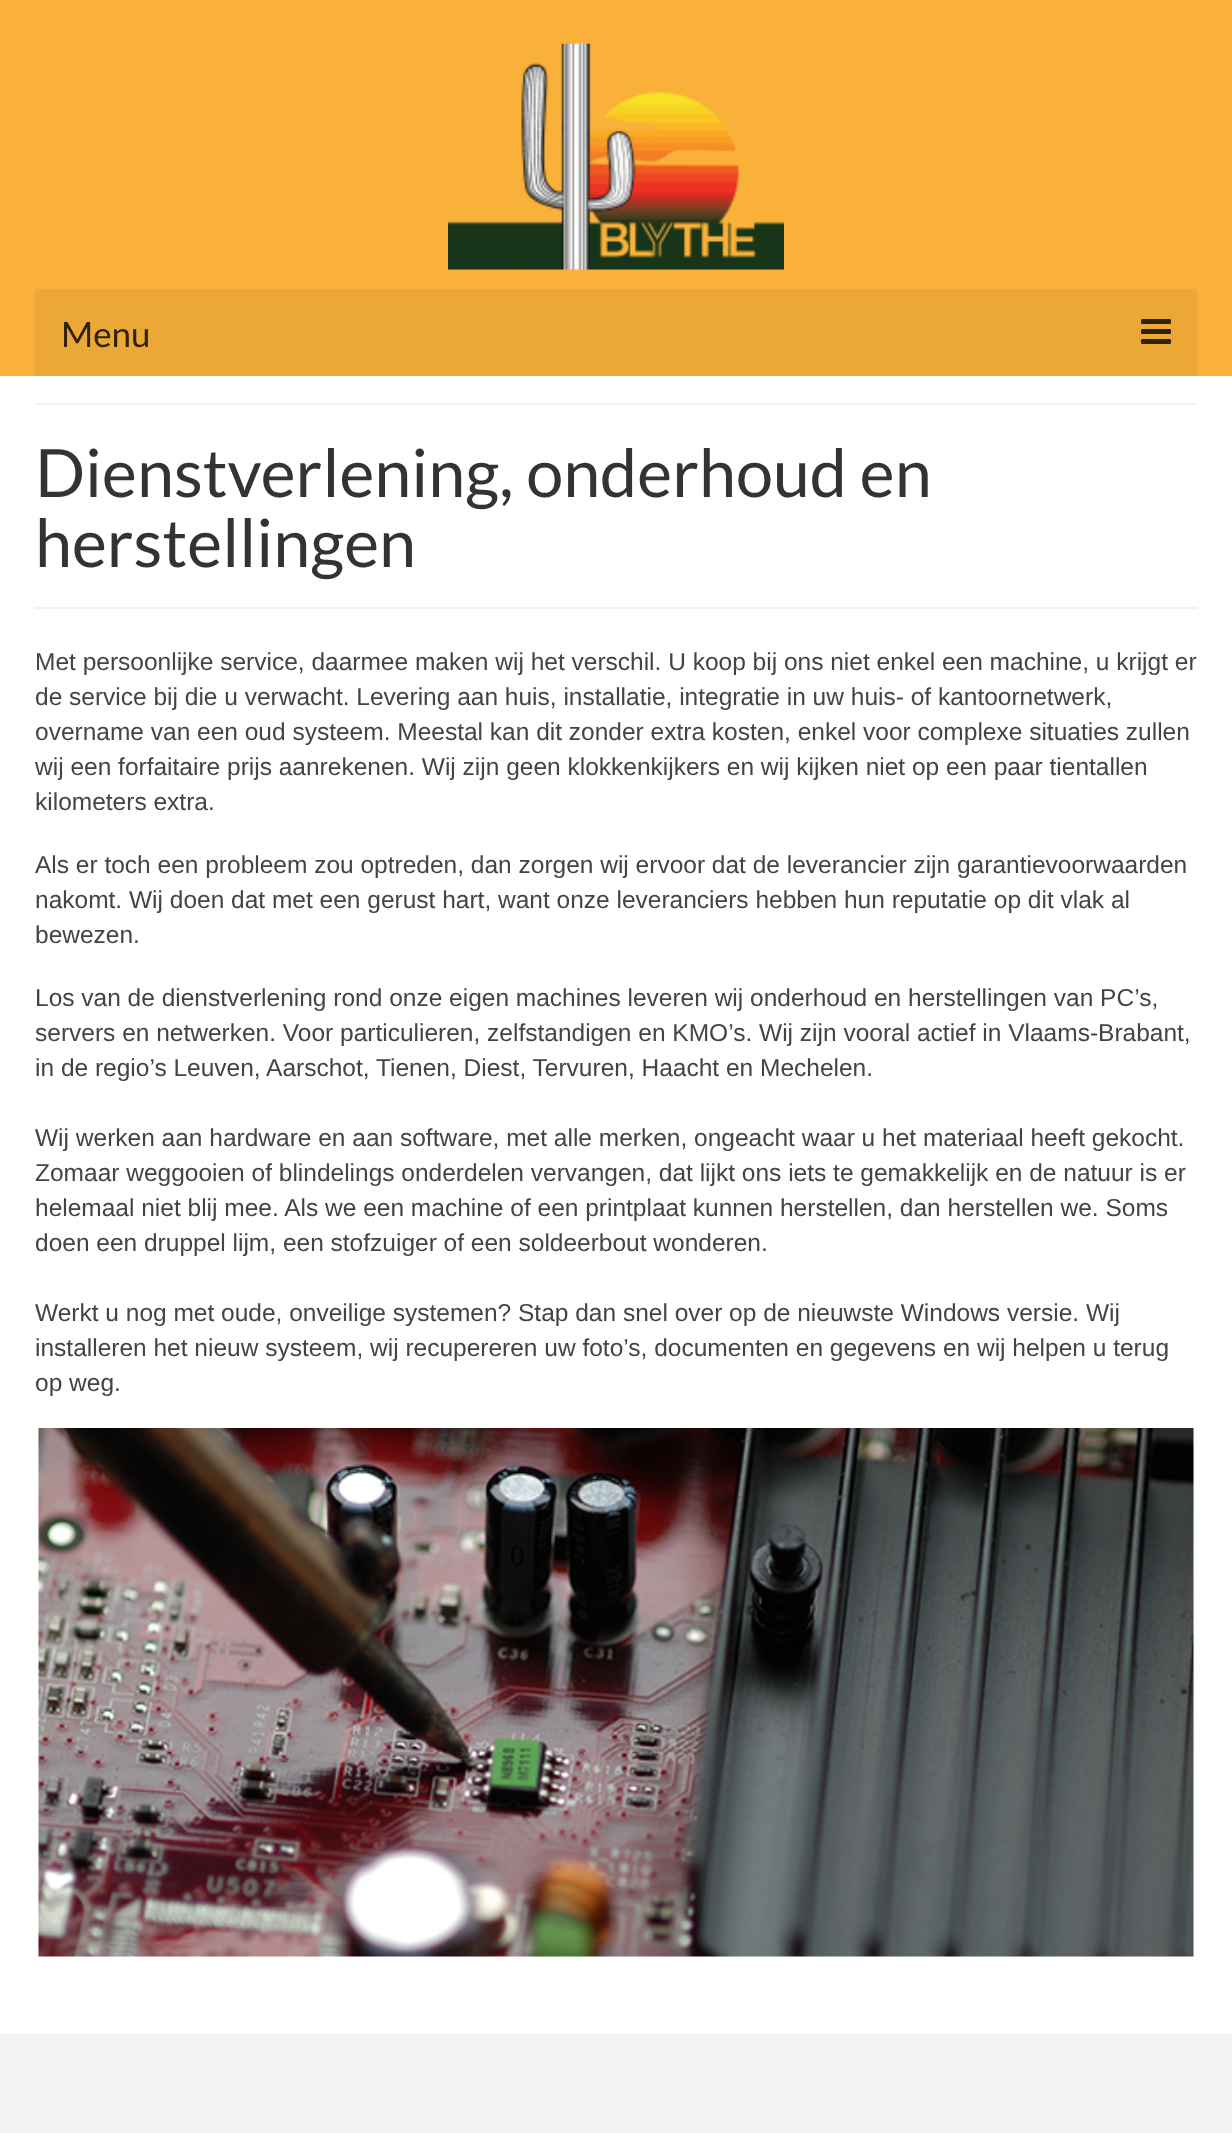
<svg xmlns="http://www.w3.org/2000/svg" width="1232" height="2133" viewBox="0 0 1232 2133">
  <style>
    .t1 { font: 35px Lato; fill: #2f220b; }
    .t2 { font: 66.5px Lato; fill: #333; }
    .t3 { font: 24.5px Liberation Sans; fill: #444; }
  </style>
  <rect width="100%" height="100%" fill="#fff"/>
  <rect x="0" y="0" width="1232" height="376" fill="#f9b139"/>
  <image x="448" y="43" width="336" height="227" href="images/1.png"/>
  <rect x="35" y="289" width="1162" height="87" fill="#eca836"/>
  <text x="61" y="347" class="t1">Menu</text>
  <image x="1141" y="319" width="30" height="25" href="images/2.png"/>
  <rect x="35" y="403" width="1162" height="2" fill="#f2f2f2"/>
  <rect x="35" y="607" width="1162" height="2" fill="#f2f2f2"/>
  <text x="35" y="497" class="t2">Dienstverlening, onderhoud en</text>
  <text x="35" y="567" class="t2">herstellingen</text>
  <text x="35" y="670" class="t3">Met persoonlijke service, daarmee maken wij het verschil. U koop bij ons niet enkel een machine, u krijgt er</text>
  <text x="35" y="705" class="t3">de service bij die u verwacht. Levering aan huis, installatie, integratie in uw huis- of kantoornetwerk,</text>
  <text x="35" y="740" class="t3">overname van een oud systeem. Meestal kan dit zonder extra kosten, enkel voor complexe situaties zullen</text>
  <text x="35" y="775" class="t3">wij een forfaitaire prijs aanrekenen. Wij zijn geen klokkenkijkers en wij kijken niet op een paar tientallen</text>
  <text x="35" y="810" class="t3">kilometers extra.</text>
  <text x="35" y="873" class="t3">Als er toch een probleem zou optreden, dan zorgen wij ervoor dat de leverancier zijn garantievoorwaarden</text>
  <text x="35" y="908" class="t3">nakomt. Wij doen dat met een gerust hart, want onze leveranciers hebben hun reputatie op dit vlak al</text>
  <text x="35" y="943" class="t3">bewezen.</text>
  <text x="35" y="1006" class="t3">Los van de dienstverlening rond onze eigen machines leveren wij onderhoud en herstellingen van PC’s,</text>
  <text x="35" y="1041" class="t3">servers en netwerken. Voor particulieren, zelfstandigen en KMO’s. Wij zijn vooral actief in Vlaams-Brabant,</text>
  <text x="35" y="1076" class="t3">in de regio’s Leuven, Aarschot, Tienen, Diest, Tervuren, Haacht en Mechelen.</text>
  <text x="35" y="1146" class="t3">Wij werken aan hardware en aan software, met alle merken, ongeacht waar u het materiaal heeft gekocht.</text>
  <text x="35" y="1181" class="t3">Zomaar weggooien of blindelings onderdelen vervangen, dat lijkt ons iets te gemakkelijk en de natuur is er</text>
  <text x="35" y="1216" class="t3">helemaal niet blij mee. Als we een machine of een printplaat kunnen herstellen, dan herstellen we. Soms</text>
  <text x="35" y="1251" class="t3">doen een druppel lijm, een stofzuiger of een soldeerbout wonderen.</text>
  <text x="35" y="1321" class="t3">Werkt u nog met oude, onveilige systemen? Stap dan snel over op de nieuwste Windows versie. Wij</text>
  <text x="35" y="1356" class="t3">installeren het nieuw systeem, wij recupereren uw foto’s, documenten en gegevens en wij helpen u terug</text>
  <text x="35" y="1391" class="t3">op weg.</text>
  <image x="38" y="1428" width="1156" height="529" href="images/3.png"/>
  <rect x="0" y="2034" width="1232" height="99" fill="#f2f2f2"/>
</svg>
